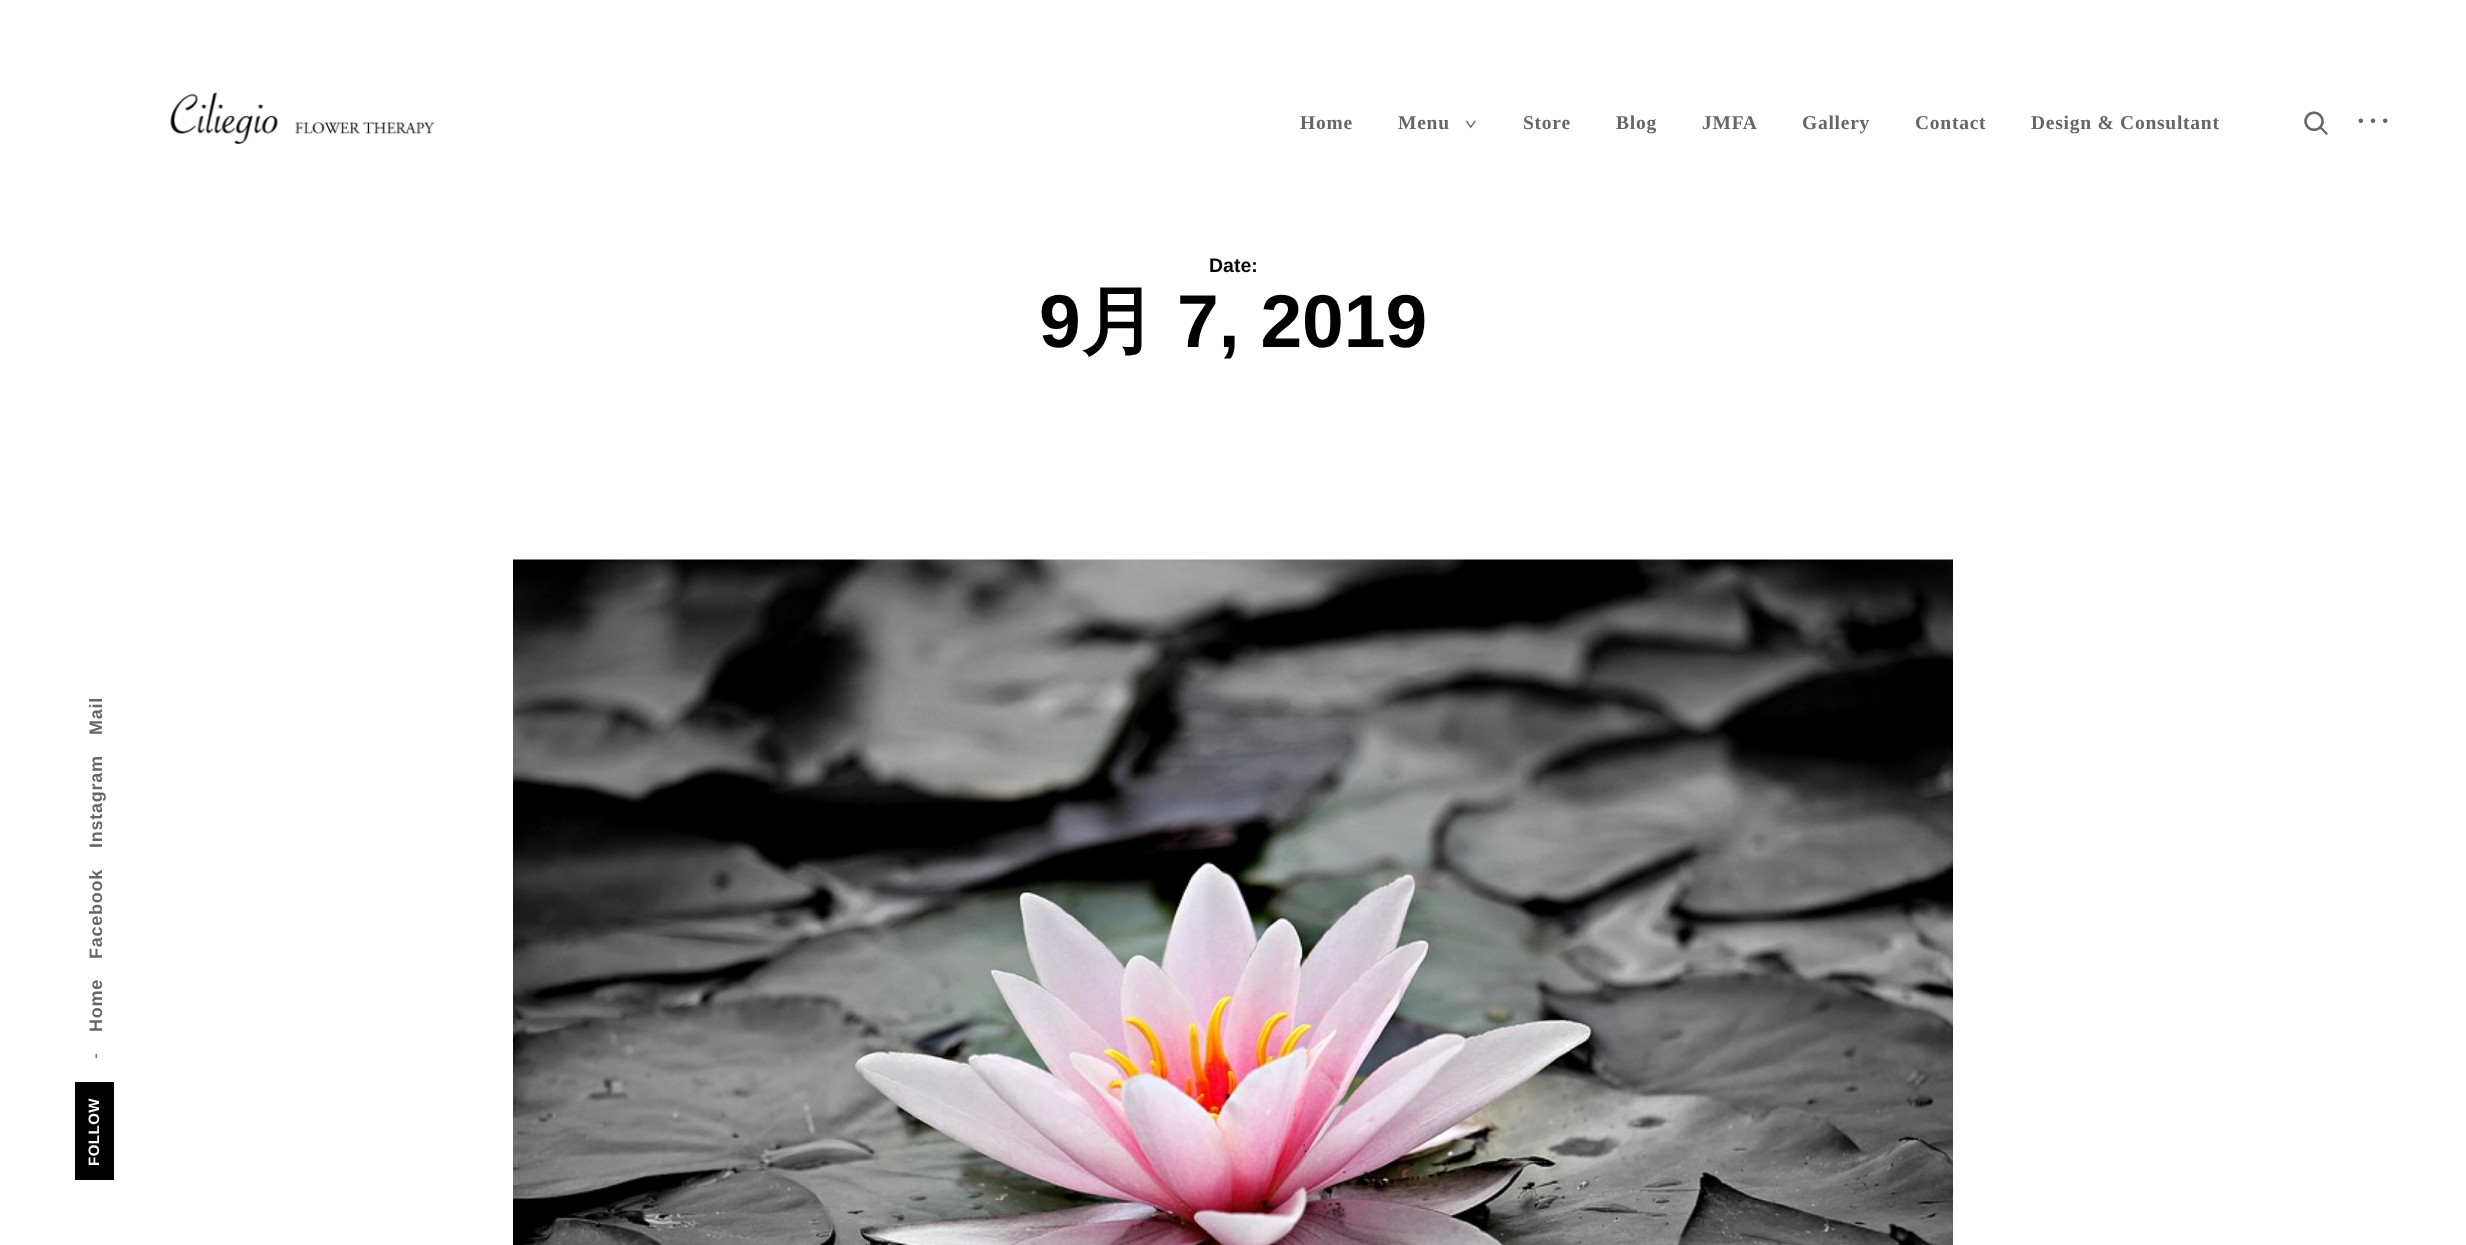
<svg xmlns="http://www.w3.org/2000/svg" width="2466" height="1245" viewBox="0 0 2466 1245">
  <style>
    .t1 { font: bold 19.5px Liberation Serif; letter-spacing: 0.75px; fill: #666; }
    .t2 { font: bold 19.5px Liberation Sans; fill: #000; }
    .t3 { font: bold 75px Liberation Sans; fill: #000; }
    .t4 { font: bold 75px WenQuanYi Zen Hei; fill: #000; }
    .t5 { font: bold 18px Liberation Sans; letter-spacing: 0.75px; fill: #666; }
    .t6 { font: 18px Liberation Sans; letter-spacing: 0.5px; fill: #666; }
    .t7 { font: bold 15px Liberation Sans; letter-spacing: 0.5px; fill: #fff; }
  </style>
  <rect width="100%" height="100%" fill="#fff"/>
  <image x="170" y="92" width="265" height="52" href="images/1.png"/>
  <text x="1300" y="129" class="t1">Home</text>
  <text x="1398" y="129" class="t1">Menu</text>
  <image x="1465" y="120" width="11" height="9" href="images/2.png"/>
  <text x="1523" y="129" class="t1">Store</text>
  <text x="1616" y="129" class="t1">Blog</text>
  <text x="1702" y="129" class="t1">JMFA</text>
  <text x="1802" y="129" class="t1">Gallery</text>
  <text x="1915" y="129" class="t1">Contact</text>
  <text x="2031" y="129" class="t1">Design &amp; Consultant</text>
  <image x="2304" y="111" width="24" height="24" href="images/3.png"/>
  <image x="2358" y="118" width="30" height="5" href="images/4.png"/>
  <text x="1209" y="272" class="t2">Date:</text>
  <text x="1039" y="347" class="t3">9</text>
  <text x="1081" y="347" class="t4">月</text>
  <text x="1177" y="347" class="t3">7, 2019</text>
  <image x="513" y="559" width="1440" height="686" href="images/5.png"/>
  <text x="102" y="735" transform="rotate(-90 102 735)" class="t5">Mail</text>
  <text x="102" y="848" transform="rotate(-90 102 848)" class="t5">Instagram</text>
  <text x="102" y="959" transform="rotate(-90 102 959)" class="t5">Facebook</text>
  <text x="102" y="1032" transform="rotate(-90 102 1032)" class="t5">Home</text>
  <rect x="75" y="1082" width="39" height="98" fill="#000"/>
  <text x="101" y="1059" transform="rotate(-90 101 1059)" class="t6">-</text>
  <text x="99" y="1166" transform="rotate(-90 99 1166)" class="t7">FOLLOW</text>
</svg>
